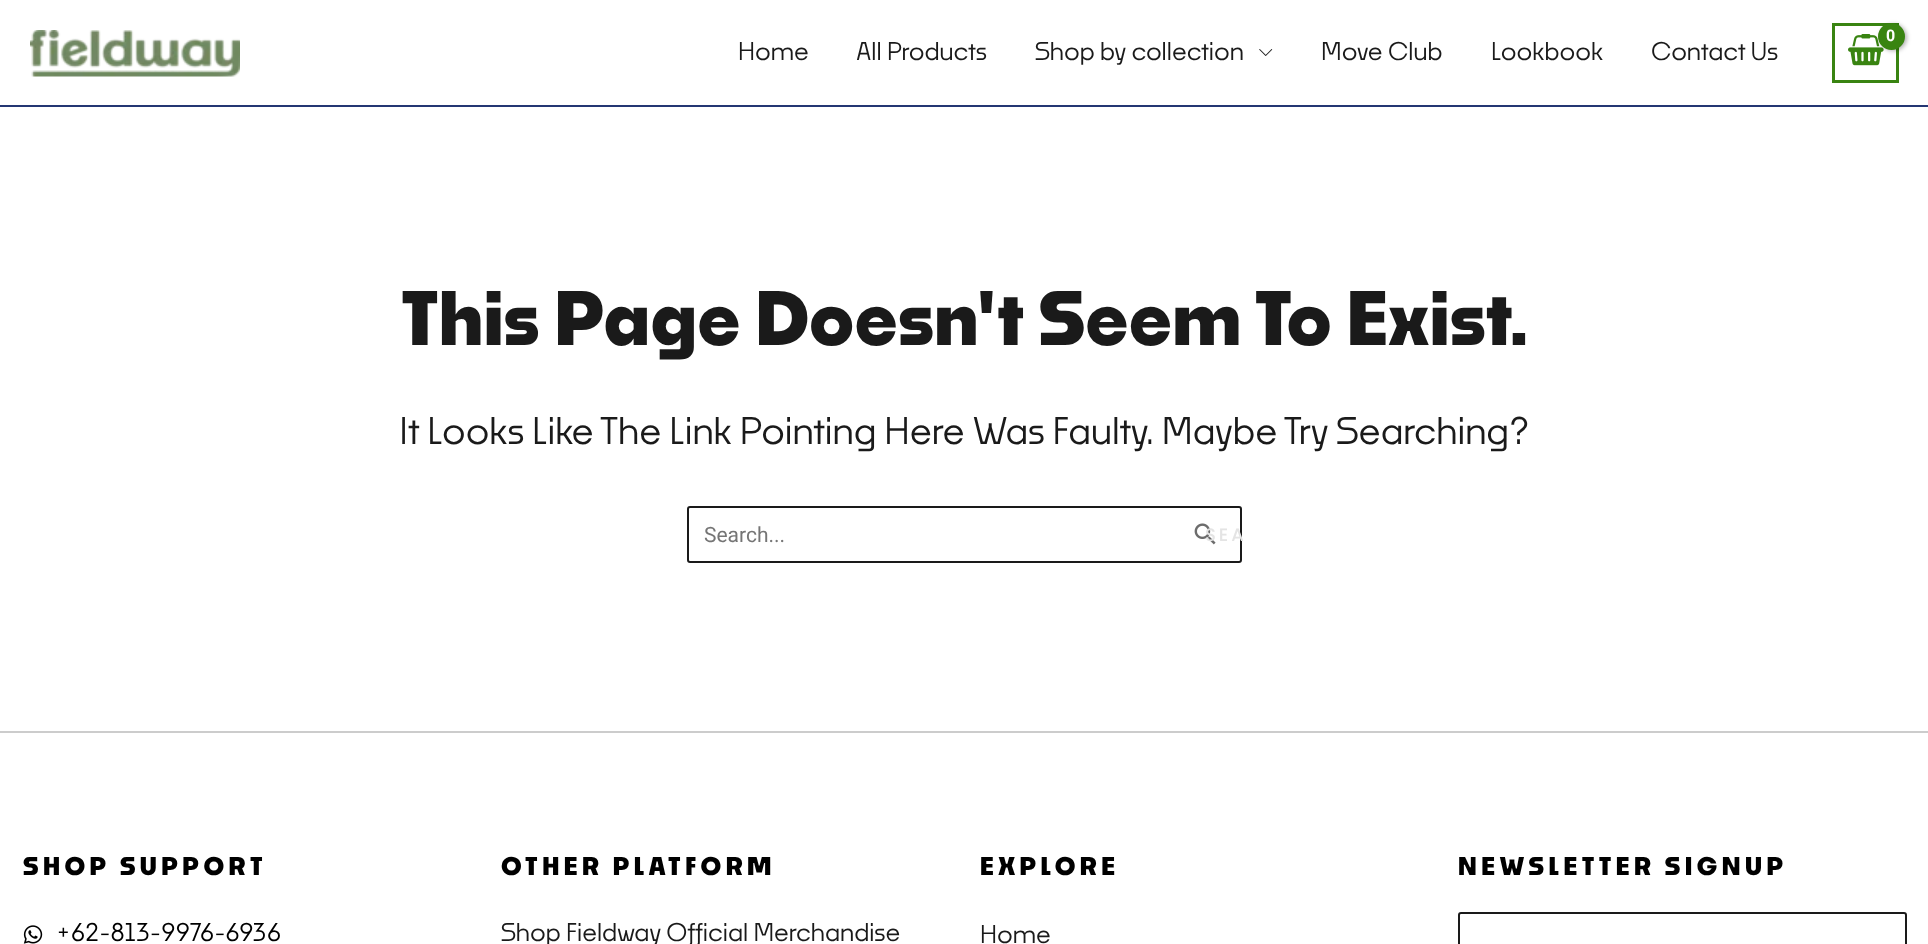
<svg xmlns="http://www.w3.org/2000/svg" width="1928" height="944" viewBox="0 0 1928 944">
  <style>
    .t1 { font: bold 16px Roboto; letter-spacing: -1px; fill: #fff; }
    .t2 { font: 500 24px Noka; fill: #1a1a1a; }
    .t3 { font: bold 72px Noka; fill: #1a1a1a; }
    .t4 { font: 500 36px Noka; fill: #1a1a1a; }
    .t5 { font: 21px Roboto; fill: #757575; }
    .t6 { font: 500 18px Poppins; letter-spacing: 3px; fill: #e4e4e4; }
    .t7 { font: bold 24px Noka; letter-spacing: 4.5px; fill: #000; }
    .t8 { font: 500 24px Noka; fill: #000; }
  </style>
  <rect width="100%" height="100%" fill="#fff"/>
  <rect x="0" y="105" width="1928" height="2" fill="#243673"/>
  <image x="30" y="30" width="210" height="47" href="images/1.png"/>
  <rect x="1833.5" y="24.5" width="64" height="57" fill="none" stroke="#398411" stroke-width="3"/>
  <image x="1848" y="34" width="36" height="32" href="images/2.png"/>
  <rect x="1880" y="24" width="27" height="27" rx="13.5" fill="#0000004d" filter="blur(2px)"/>
  <circle cx="1891.5" cy="36.5" r="13.5" fill="#398411"/>
  <text x="1886" y="41" class="t1">0</text>
  <text x="738" y="60" class="t2">Home</text>
  <text x="856" y="60" class="t2">All Products</text>
  <text x="1035" y="60" class="t2">Shop by collection</text>
  <image x="1259" y="49" width="14" height="7" href="images/3.png"/>
  <text x="1321" y="60" class="t2">Move Club</text>
  <text x="1491" y="60" class="t2">Lookbook</text>
  <text x="1651" y="60" class="t2">Contact Us</text>
  <text x="401" y="345" class="t3">This Page Doesn't Seem To Exist.</text>
  <text x="399" y="444" class="t4">It Looks Like The Link Pointing Here Was Faulty. Maybe Try Searching?</text>
  <rect x="688" y="507" width="553" height="55" rx="2" fill="none" stroke="#1a1a1a" stroke-width="2"/>
  <text x="704" y="542" class="t5">Search...</text>
  <image x="1194" y="523" width="22" height="22" href="images/4.png"/>
  <text x="1205" y="541" class="t6">SEA</text>
  <rect x="0" y="731" width="1928" height="2" fill="#ccc"/>
  <text x="23" y="875" class="t7">SHOP SUPPORT</text>
  <image x="23" y="925" width="20" height="19" href="images/5.png"/>
  <text x="56" y="941" class="t8">+62-813-9976-6936</text>
  <text x="501" y="875" class="t7">OTHER PLATFORM</text>
  <text x="501" y="941" class="t2">Shop Fieldway Official Merchandise</text>
  <text x="980" y="875" class="t7">EXPLORE</text>
  <text x="980" y="943" class="t2">Home</text>
  <text x="1458" y="875" class="t7">NEWSLETTER SIGNUP</text>
  <rect x="1459" y="913" width="447" height="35" rx="2" fill="none" stroke="#1a1a1a" stroke-width="2"/>
</svg>
